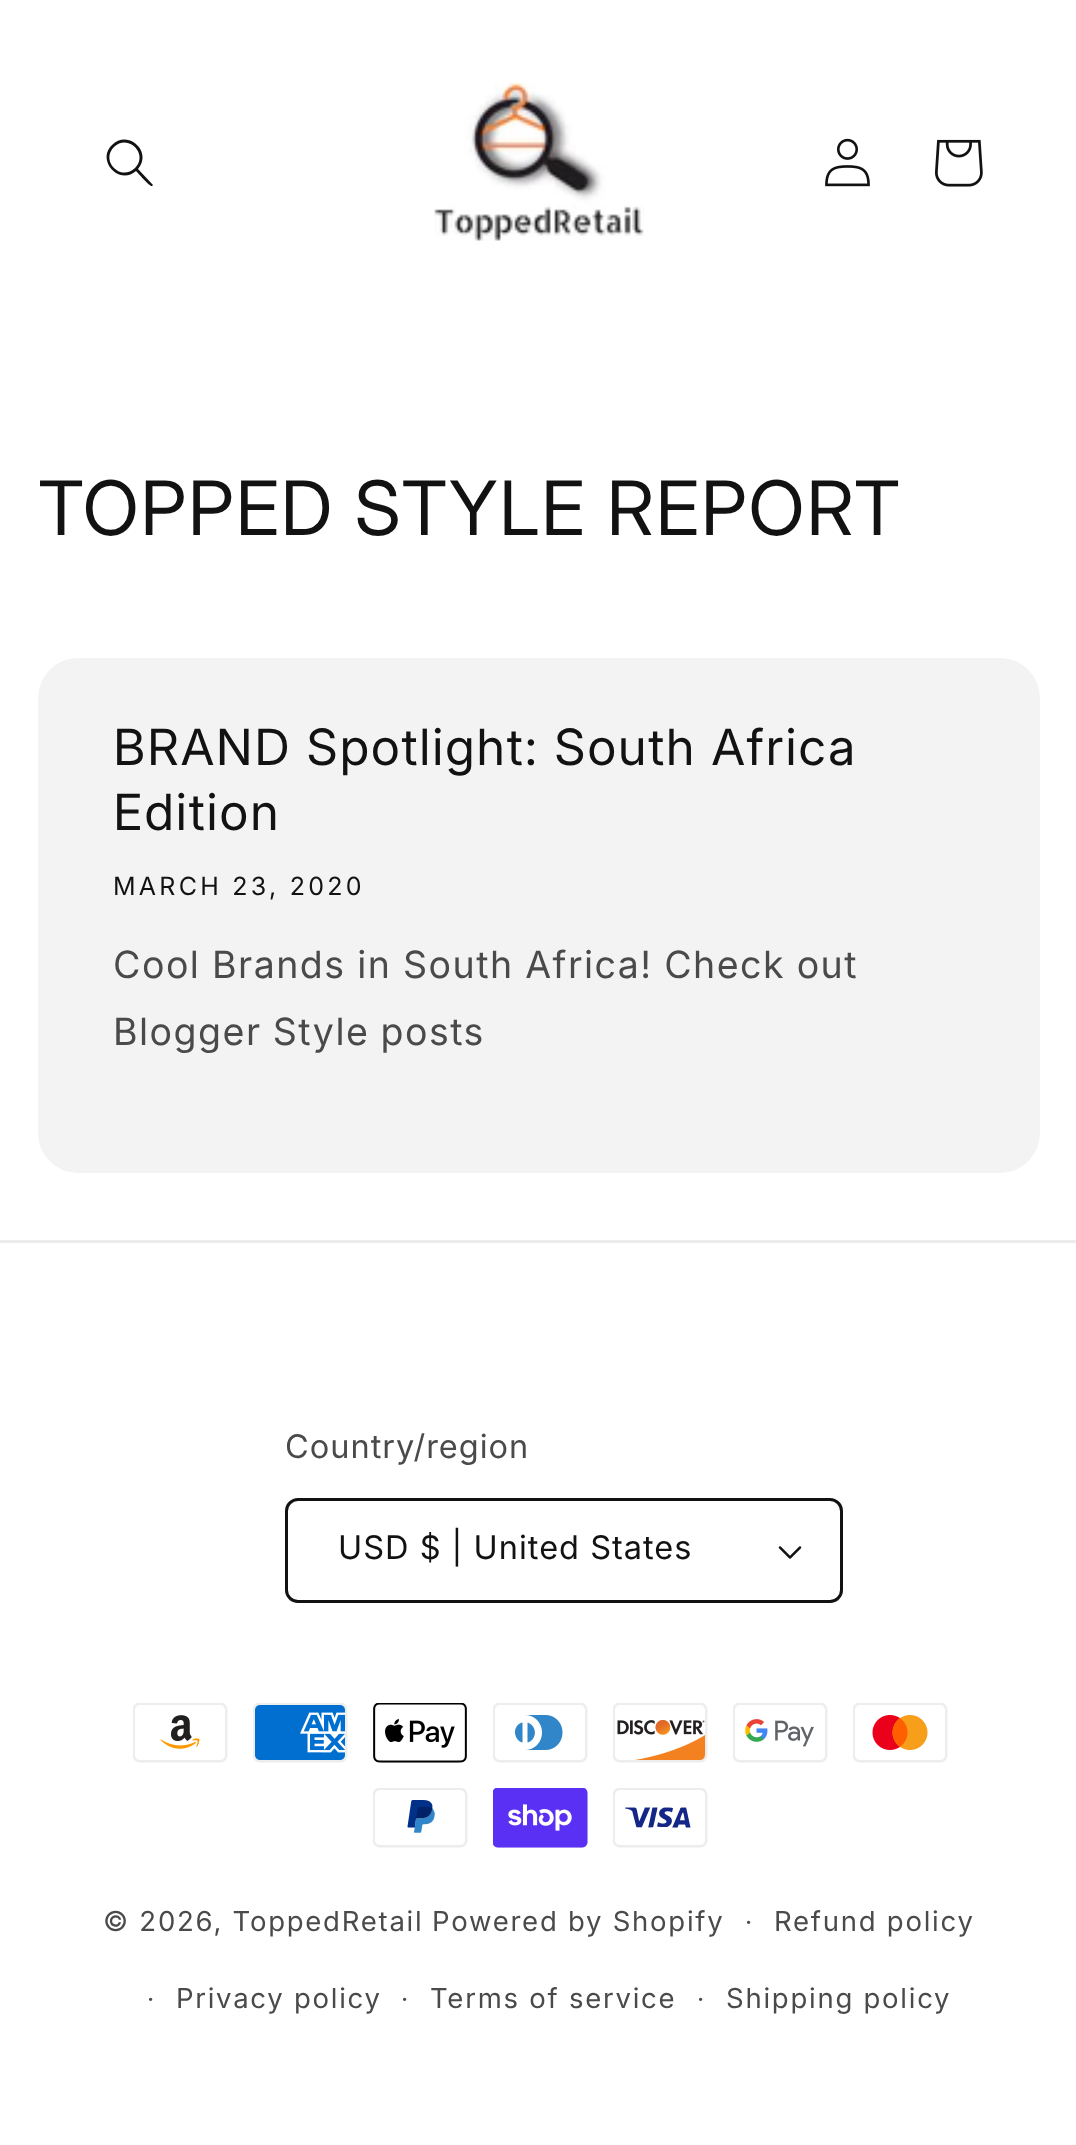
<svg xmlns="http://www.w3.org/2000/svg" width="1076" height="2145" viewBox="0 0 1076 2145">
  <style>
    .t1 { font: 75px Inter; letter-spacing: 1.5px; fill: #121212; }
    .t2 { font: 50px 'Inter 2'; letter-spacing: 1.5px; fill: #121212; }
    .t3 { font: 25px 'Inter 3'; letter-spacing: 3.25px; fill: #121212; }
    .t4 { font: 37.5px 'Inter 3'; letter-spacing: 1.5px; fill: #4a4a4a; }
    .t5 { font: 32.5px 'Inter 3'; letter-spacing: 1px; fill: #4a4a4a; }
    .t6 { font: 32.5px 'Inter 3'; letter-spacing: 1px; fill: #121212; }
    .t7 { font: 27.5px 'Inter 3'; letter-spacing: 1.75px; fill: #4a4a4a; }
    .t8 { font: 25px 'Inter 3'; letter-spacing: 1.75px; fill: #4a4a4a; }
  </style>
  <rect width="100%" height="100%" fill="#fff"/>
  <path d="M135 168C121 182 100 161 114 147C128 133 149 154 135 168ZM136 171C119 186 96 160 112 145C128 129 153 152 138 169L153 185L152 186C150 187 138 173 136 171Z" fill="#121212" fill-rule="evenodd"/>
  <image x="434" y="82" width="210" height="159" href="images/1.png"/>
  <image x="825" y="138" width="45" height="49" href="images/2.png"/>
  <image x="935" y="139" width="48" height="48" href="images/3.png"/>
  <text x="38" y="535" class="t1">TOPPED STYLE REPORT</text>
  <rect x="38" y="658" width="1002" height="515" rx="40" fill="#f3f3f3"/>
  <text x="113" y="765" class="t2">BRAND Spotlight: South Africa</text>
  <text x="113" y="830" class="t2">Edition</text>
  <text x="113" y="895" class="t3">MARCH 23, 2020</text>
  <text x="113" y="978" word-spacing="-0.5" class="t4">Cool Brands in South Africa! Check out</text>
  <text x="113" y="1045" word-spacing="-1" class="t4">Blogger Style posts</text>
  <rect x="0" y="1240" width="1076" height="3" fill="#ececec"/>
  <text x="285" y="1458" class="t5">Country/region</text>
  <image x="778" y="1546" width="24" height="13" href="images/4.png"/>
  <rect x="286.5" y="1499.5" width="555" height="102" rx="11.5" fill="none" stroke="#121212" stroke-width="3"/>
  <text x="338" y="1559" class="t6">USD $ | United States</text>
  <image x="133" y="1703" width="95" height="60" href="images/5.png"/>
  <image x="253" y="1703" width="95" height="60" href="images/6.png"/>
  <image x="373" y="1703" width="94" height="60" href="images/7.png"/>
  <image x="493" y="1703" width="95" height="60" href="images/8.png"/>
  <image x="613" y="1703" width="95" height="60" href="images/9.png"/>
  <image x="733" y="1703" width="95" height="60" href="images/10.png"/>
  <image x="853" y="1703" width="95" height="60" href="images/11.png"/>
  <image x="373" y="1788" width="95" height="60" href="images/12.png"/>
  <image x="493" y="1788" width="95" height="60" href="images/13.png"/>
  <image x="613" y="1788" width="95" height="60" href="images/14.png"/>
  <text x="103" y="1931" class="t7">© 2026, ToppedRetail</text>
  <text x="745" y="1931" class="t8">·</text>
  <text x="774" y="1931" class="t7">Refund policy</text>
  <text x="147" y="2008" class="t8">·</text>
  <text x="176" y="2008" class="t7">Privacy policy</text>
  <text x="401" y="2008" class="t8">·</text>
  <text x="430" y="2008" class="t7">Terms of service</text>
  <text x="697" y="2008" class="t8">·</text>
  <text x="726" y="2008" class="t7">Shipping policy</text>
  <text x="432" y="1931" class="t7">Powered by Shopify</text>
</svg>
